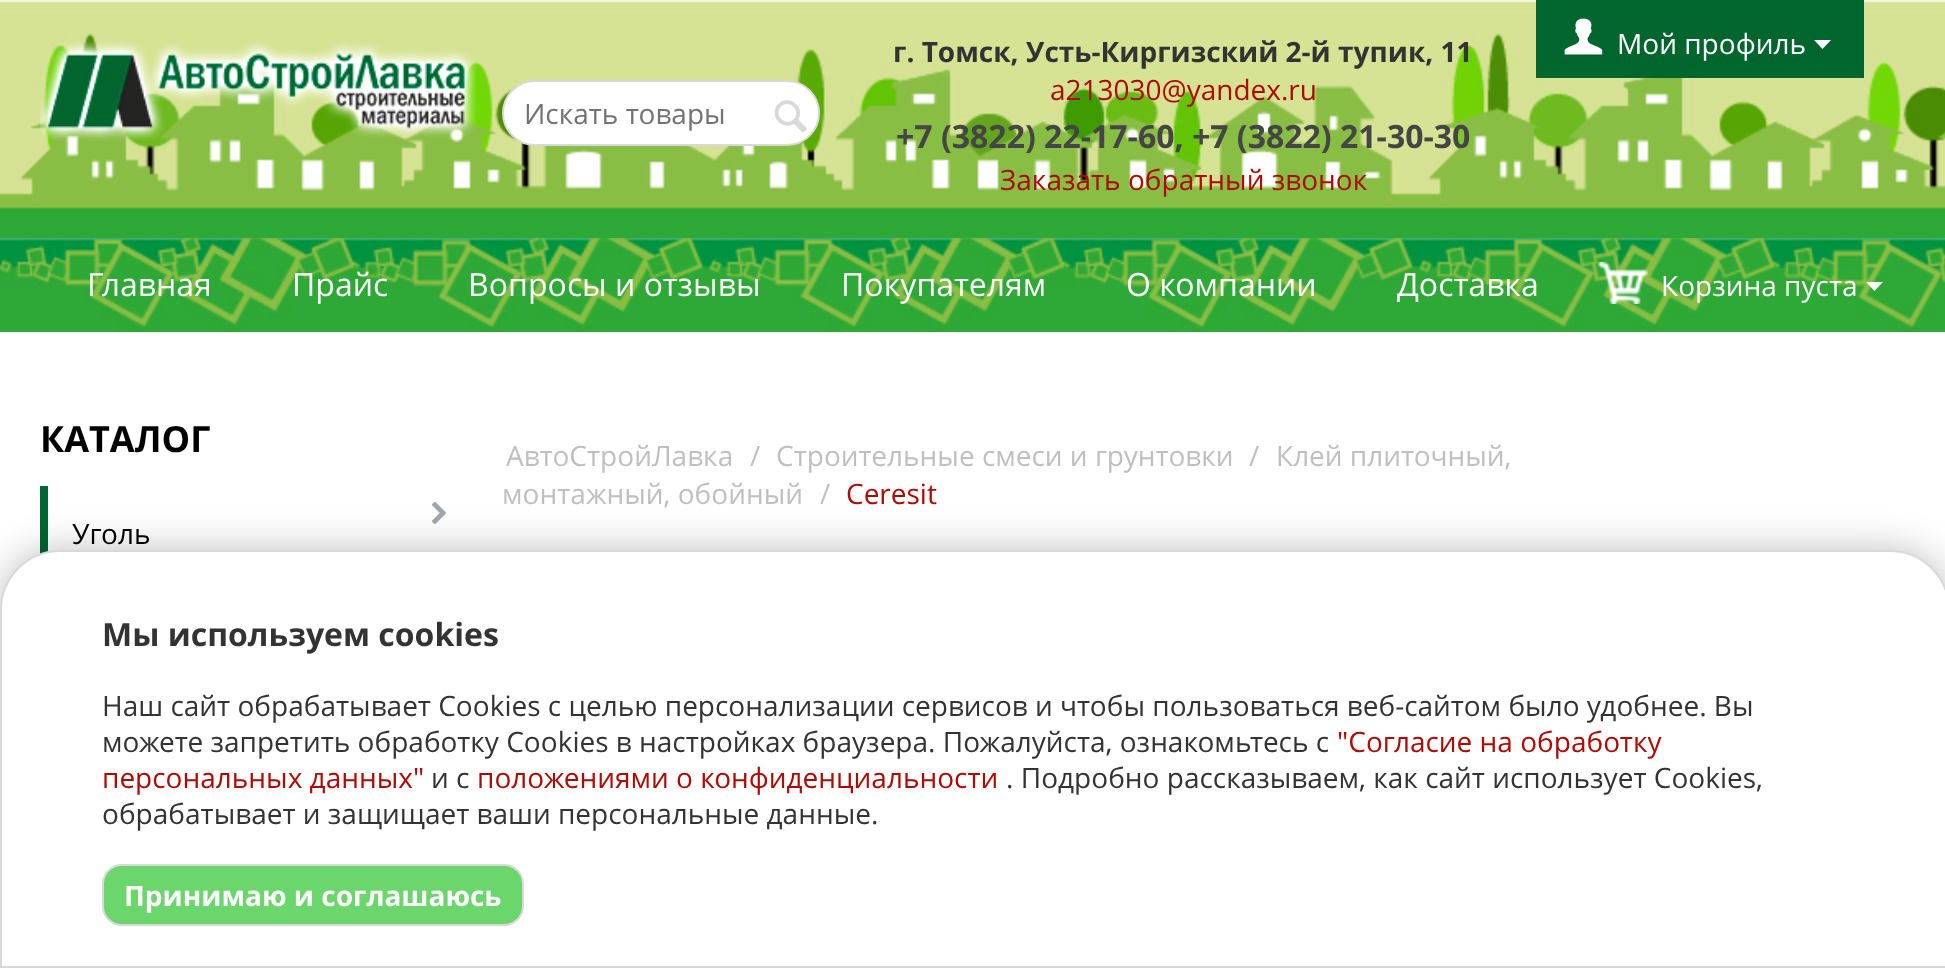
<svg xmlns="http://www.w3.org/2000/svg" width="1945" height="968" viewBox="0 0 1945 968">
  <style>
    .t1 { font: 28px 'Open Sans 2'; fill: #737373; }
    .t2 { font: bold 28px Open Sans; fill: #333; }
    .t3 { font: 28px Open Sans; fill: #b00903; }
    .t4 { font: bold 32px Open Sans; fill: #454545; }
    .t5 { font: 28px 'Open Sans 2'; fill: #b00903; }
    .t6 { font: 28px 'Open Sans 2'; fill: #fff; }
    .t7 { font: 32px 'Open Sans 2'; fill: #fff; }
    .t8 { font: bold 36px Open Sans; fill: #000; }
    .t9 { font: 28px 'Open Sans 2'; fill: #000; }
    .t10 { font: 28px 'Open Sans 2'; fill: #bfbfbf; }
    .t11 { font: 28px Open Sans; fill: #bfbfbf; }
    .t12 { font: bold 32px Open Sans; fill: #333; }
    .t13 { font: 28px 'Open Sans 2'; fill: #333; }
    .t14 { font: 28px Open Sans; fill: #333; }
    .t15 { font: bold 28px Open Sans; fill: #fff; }
  </style>
  <rect width="100%" height="100%" fill="#fff"/>
  <image x="0" y="0" width="1945" height="238" href="images/1.png"/>
  <image x="40" y="40" width="436" height="101" href="images/2.png"/>
  <rect x="503" y="81" width="316" height="64" rx="32" fill="#fff" stroke="#d9d9d9" stroke-width="2"/>
  <text x="524" y="124" class="t1">Искать товары</text>
  <image x="774" y="100" width="33" height="33" href="images/3.png"/>
  <text x="893" y="62" class="t2">г. Томск, Усть-Киргизский 2-й тупик, 11</text>
  <text x="1050" y="100" class="t3">a213030@yandex.ru</text>
  <text x="896" y="148" class="t4">+7 (3822) 22-17-60, +7 (3822) 21-30-30</text>
  <text x="1000" y="190" class="t5">Заказать обратный звонок</text>
  <rect x="1536" y="0" width="328" height="78" fill="#00662e"/>
  <image x="1564" y="18" width="39" height="37" href="images/4.png"/>
  <text x="1617" y="54" class="t6">Мой профиль</text>
  <path d="M1822.5 49L1814 40H1831Z" fill="#fff"/>
  <image x="0" y="238" width="1945" height="94" href="images/5.png"/>
  <text x="87" y="296" class="t7">Главная</text>
  <text x="292" y="296" class="t7">Прайс</text>
  <text x="468" y="296" class="t7">Вопросы и отзывы</text>
  <text x="841" y="296" class="t7">Покупателям</text>
  <text x="1126" y="296" class="t7">О компании</text>
  <text x="1397" y="296" class="t7">Доставка</text>
  <image x="1598" y="262" width="50" height="42" href="images/6.png"/>
  <text x="1661" y="296" class="t6">Корзина пуста</text>
  <path d="M1874.5 291L1866 282H1883Z" fill="#fff"/>
  <text x="40" y="452" class="t8">КАТАЛОГ</text>
  <rect x="40" y="486" width="8" height="68" fill="#063"/>
  <image x="432" y="501" width="14" height="23" href="images/7.png"/>
  <text x="72" y="544" class="t9">Уголь</text>
  <text x="506" y="466" class="t10">АвтоСтройЛавка</text>
  <text x="750" y="466" class="t11">/</text>
  <text x="776" y="466" class="t10">Строительные смеси и грунтовки</text>
  <text x="1249" y="466" class="t11">/</text>
  <text x="1276" y="466" class="t10">Клей плиточный,</text>
  <text x="502" y="504" class="t10">монтажный, обойный</text>
  <text x="820" y="504" class="t11">/</text>
  <text x="846" y="504" class="t3">Ceresit</text>
  <rect x="0" y="550" width="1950" height="418" rx="60" fill="#00000040" filter="blur(19px)"/>
  <path d="M60 551H1890C1922.5 551 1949 577.5 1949 610V967H1V610C1 577.5 27.5 551 60 551Z" fill="#fff" stroke="#d9d9d9" stroke-width="2"/>
  <text x="102" y="646" class="t12">Мы используем cookies</text>
  <text x="102" y="716" class="t13">Наш сайт обрабатывает Cookies с целью персонализации сервисов и чтобы пользоваться веб-сайтом было удобнее. Вы</text>
  <text x="102" y="752" class="t13">можете запретить обработку Cookies в настройках браузера. Пожалуйста, ознакомьтесь с</text>
  <text x="1337" y="752" class="t5">"Согласие на обработку</text>
  <text x="102" y="788" class="t5">персональных данных"</text>
  <text x="431" y="788" class="t13">и</text>
  <text x="456" y="788" class="t14">c</text>
  <text x="477" y="788" class="t5">положениями о конфиденциальности</text>
  <text x="1006" y="788" class="t13">. Подробно рассказываем, как сайт использует Cookies,</text>
  <text x="102" y="824" class="t13">обрабатывает и защищает ваши персональные данные.</text>
  <rect x="103" y="865" width="420" height="60" rx="19" fill="#6bd66b" stroke="#d9d9d9" stroke-width="2"/>
  <text x="124" y="906" class="t15">Принимаю и соглашаюсь</text>
</svg>
